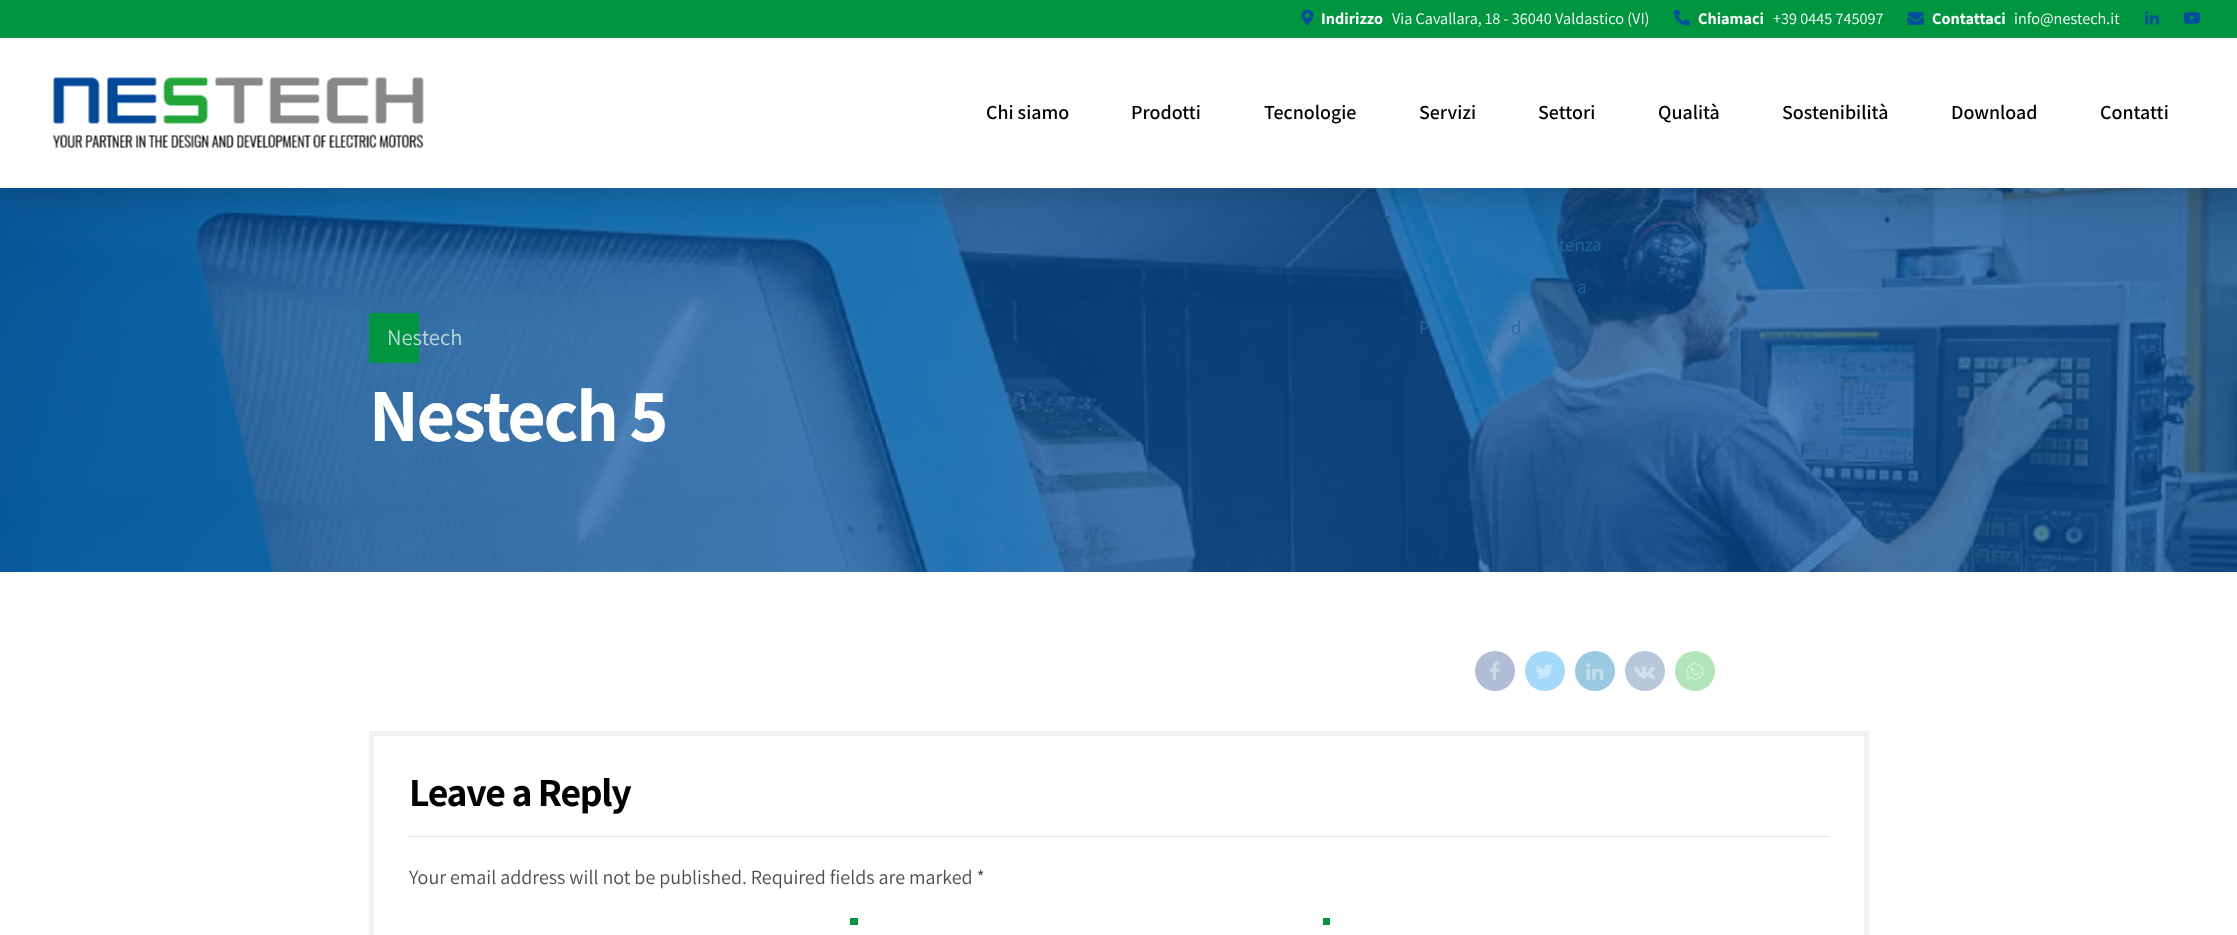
<svg xmlns="http://www.w3.org/2000/svg" width="2237" height="935" viewBox="0 0 2237 935">
  <style>
    .t1 { font: bold 16.25px Assistant; fill: #fff; }
    .t2 { font: 16.25px Assistant; fill: #fff; }
    .t3 { font: 600 20px Assistant; fill: #000; }
    .t4 { font: 19px Assistant; fill: #1d66a3; }
    .t5 { font: 19px Assistant; fill: #2b6aa4; }
    .t6 { font: 22.5px Assistant; fill: #bcd9d7; }
    .t7 { font: bold 75px Assistant; letter-spacing: -2.25px; fill: #fff; }
    .t8 { font: bold 40px Assistant; letter-spacing: -1.25px; fill: #000; }
    .t9 { font: 20px Assistant; fill: #4d4d4d; }
  </style>
  <rect width="100%" height="100%" fill="#fff"/>
  <image x="0" y="188" width="2237" height="384" href="images/7.png"/>
  <rect x="0" y="6" width="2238" height="188" fill="#00000033" filter="blur(19px)"/>
  <rect x="0" y="38" width="2237" height="150" fill="#fff"/>
  <rect x="0" y="0" width="2237" height="38" fill="#009640"/>
  <image x="1301" y="9" width="13" height="17" href="images/1.png"/>
  <text x="1321" y="24" class="t1">Indirizzo</text>
  <text x="1392" y="24" class="t2">Via Cavallara, 18 - 36040 Valdastico (VI)</text>
  <image x="1673" y="9" width="17" height="17" href="images/2.png"/>
  <text x="1698" y="24" class="t1">Chiamaci</text>
  <text x="1773" y="24" class="t2">+39 0445 745097</text>
  <image x="1907" y="12" width="17" height="13" href="images/3.png"/>
  <text x="1932" y="24" class="t1">Contattaci</text>
  <text x="2014" y="24" class="t2">info@nestech.it</text>
  <image x="2145" y="11" width="14" height="14" href="images/4.png"/>
  <image x="2183" y="12" width="17" height="12" href="images/5.png"/>
  <image x="53" y="77" width="371" height="71" href="images/6.png"/>
  <text x="986" y="119" class="t3">Chi siamo</text>
  <text x="1131" y="119" class="t3">Prodotti</text>
  <text x="1264" y="119" class="t3">Tecnologie</text>
  <text x="1419" y="119" class="t3">Servizi</text>
  <text x="1559" y="251" class="t4">tenza</text>
  <text x="1577" y="293" class="t4">a</text>
  <text x="1419" y="334" class="t5">P</text>
  <text x="1511" y="334" class="t5">d</text>
  <text x="1658" y="119" class="t3">Qualità</text>
  <text x="1782" y="119" class="t3">Sostenibilità</text>
  <text x="1538" y="119" class="t3">Settori</text>
  <text x="1951" y="119" class="t3">Download</text>
  <text x="2100" y="119" class="t3">Contatti</text>
  <rect x="369" y="313" width="50" height="50" fill="#009640"/>
  <text x="387" y="345" class="t6">Nestech</text>
  <text x="369" y="441" class="t7">Nestech 5</text>
  <circle cx="1495" cy="671" r="20" fill="#b1bdd6"/>
  <image x="1489" y="661" width="11" height="20" href="images/8.png"/>
  <circle cx="1545" cy="671" r="20" fill="#a5d9fa"/>
  <image x="1536" y="664" width="17" height="15" href="images/9.png"/>
  <circle cx="1595" cy="671" r="20" fill="#99cae1"/>
  <image x="1586" y="663" width="18" height="17" href="images/10.png"/>
  <circle cx="1645" cy="671" r="20" fill="#b7c8db"/>
  <image x="1633" y="666" width="22" height="13" href="images/11.png"/>
  <circle cx="1695" cy="671" r="20" fill="#b2e5b9"/>
  <image x="1686" y="663" width="18" height="17" href="images/12.png"/>
  <rect x="371.5" y="733.5" width="1495" height="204" fill="none" stroke="#f2f2f2" stroke-width="5"/>
  <rect x="409" y="836" width="1420" height="1" fill="#e6e6e6"/>
  <text x="409" y="806" class="t8">Leave a Reply</text>
  <text x="409" y="884" class="t9">Your email address will not be published. Required fields are marked *</text>
  <rect x="850" y="918" width="8" height="7" fill="#009640"/>
  <rect x="1323" y="918" width="7" height="7" fill="#009640"/>
</svg>
